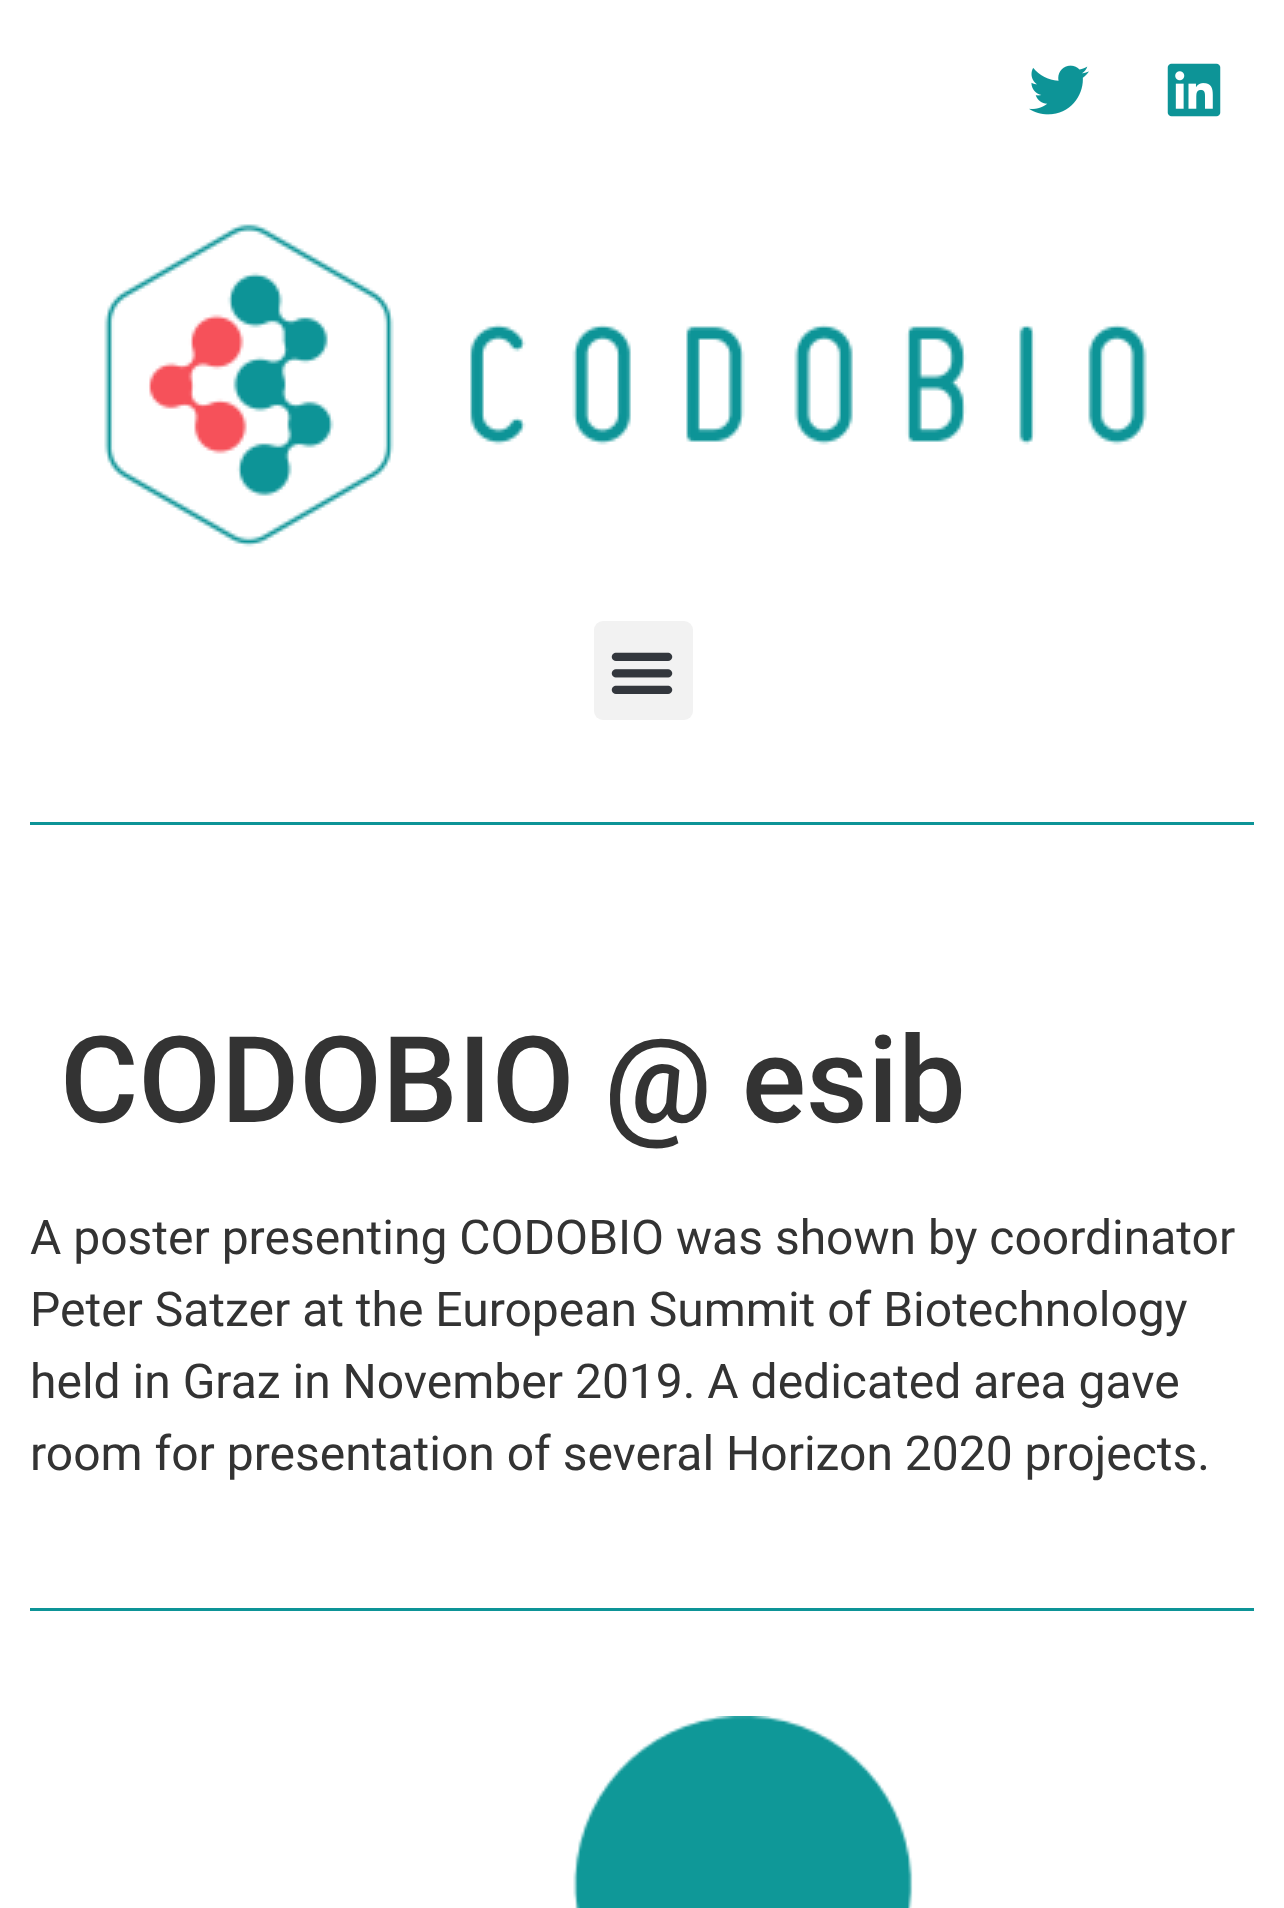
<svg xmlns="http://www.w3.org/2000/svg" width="1284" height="1908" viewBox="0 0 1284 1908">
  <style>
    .t1 { font: 500 120px Roboto; fill: #333; }
    .t2 { font: 48px Roboto; fill: #333; }
  </style>
  <rect width="100%" height="100%" fill="#fff"/>
  <image x="1029" y="65" width="60" height="50" href="images/1.png"/>
  <image x="1167" y="63" width="54" height="54" href="images/2.png"/>
  <image x="104" y="224" width="1043" height="323" href="images/3.png"/>
  <rect x="594" y="621" width="99" height="99" rx="9" fill="#f2f2f2"/>
  <image x="611" y="652" width="62" height="42" href="images/4.png"/>
  <rect x="30" y="822" width="1224" height="3" fill="#0d9497"/>
  <text x="60" y="1122" class="t1">CODOBIO @ esib</text>
  <text x="30" y="1254" class="t2">A poster presenting CODOBIO was shown by coordinator</text>
  <text x="30" y="1326" class="t2">Peter Satzer at the European Summit of Biotechnology</text>
  <text x="30" y="1398" class="t2">held in Graz in November 2019. A dedicated area gave</text>
  <text x="30" y="1470" class="t2">room for presentation of several Horizon 2020 projects.</text>
  <rect x="30" y="1608" width="1224" height="3" fill="#0d9497"/>
  <image x="573" y="1716" width="340" height="192" href="images/5.png"/>
</svg>
